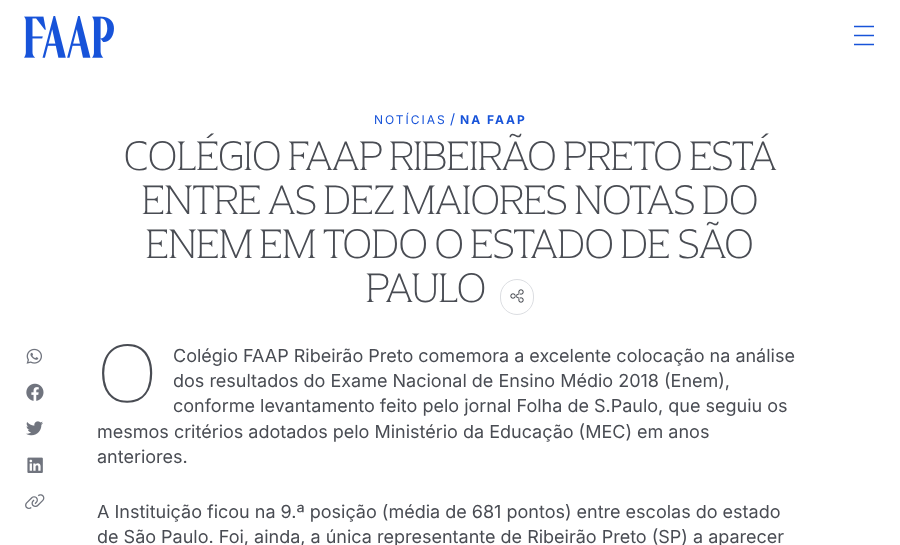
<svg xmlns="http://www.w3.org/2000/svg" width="900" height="545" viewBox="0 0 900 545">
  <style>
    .t1 { font: 12px Inter; letter-spacing: 2px; fill: #1753d9; }
    .t2 { font: 14px Inter; fill: #1753d9; }
    .t3 { font: bold 12px Inter; letter-spacing: 2px; fill: #1753d9; }
    .t4 { font: 300 40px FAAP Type; fill: #494c53; }
    .t5 { font: 100 80px Noto Sans; fill: #494c53; }
    .t6 { font: 18px Inter; fill: #494c53; }
  </style>
  <rect width="100%" height="100%" fill="#fff"/>
  <image x="24" y="16" width="90" height="42" href="images/1.png"/>
  <image x="854" y="25" width="20" height="21" href="images/2.png"/>
  <text x="374" y="124" class="t1">NOTÍCIAS</text>
  <text x="450" y="124" class="t2">/</text>
  <text x="460" y="124" class="t3">NA FAAP</text>
  <text x="124" y="170" class="t4">COLÉGIO FAAP RIBEIRÃO PRETO ESTÁ</text>
  <text x="142" y="214" class="t4">ENTRE AS DEZ MAIORES NOTAS DO</text>
  <text x="146" y="258" class="t4">ENEM EM TODO O ESTADO DE SÃO</text>
  <text x="366" y="302" class="t4">PAULO</text>
  <rect x="500.5" y="279.5" width="33" height="35" rx="16.5" fill="none" stroke="#dcdee2"/>
  <image x="510" y="289" width="14" height="14" href="images/3.png"/>
  <image x="26" y="348" width="16" height="16" href="images/4.png"/>
  <image x="26" y="383" width="18" height="18" href="images/5.png"/>
  <image x="26" y="421" width="17" height="15" href="images/6.png"/>
  <image x="27" y="457" width="16" height="16" href="images/7.png"/>
  <image x="25" y="494" width="20" height="15" href="images/8.png"/>
  <text x="97" y="402" class="t5">O</text>
  <text x="173" y="362" class="t6">Colégio FAAP Ribeirão Preto comemora a excelente colocação na análise</text>
  <text x="173" y="387" class="t6">dos resultados do Exame Nacional de Ensino Médio 2018 (Enem),</text>
  <text x="173" y="412" class="t6">conforme levantamento feito pelo jornal Folha de S.Paulo, que seguiu os</text>
  <text x="97" y="438" class="t6">mesmos critérios adotados pelo Ministério da Educação (MEC) em anos</text>
  <text x="97" y="463" class="t6">anteriores.</text>
  <text x="97" y="518" class="t6">A Instituição ficou na 9.ª posição (média de 681 pontos) entre escolas do estado</text>
  <text x="97" y="543" class="t6">de São Paulo. Foi, ainda, a única representante de Ribeirão Preto (SP) a aparecer</text>
</svg>
